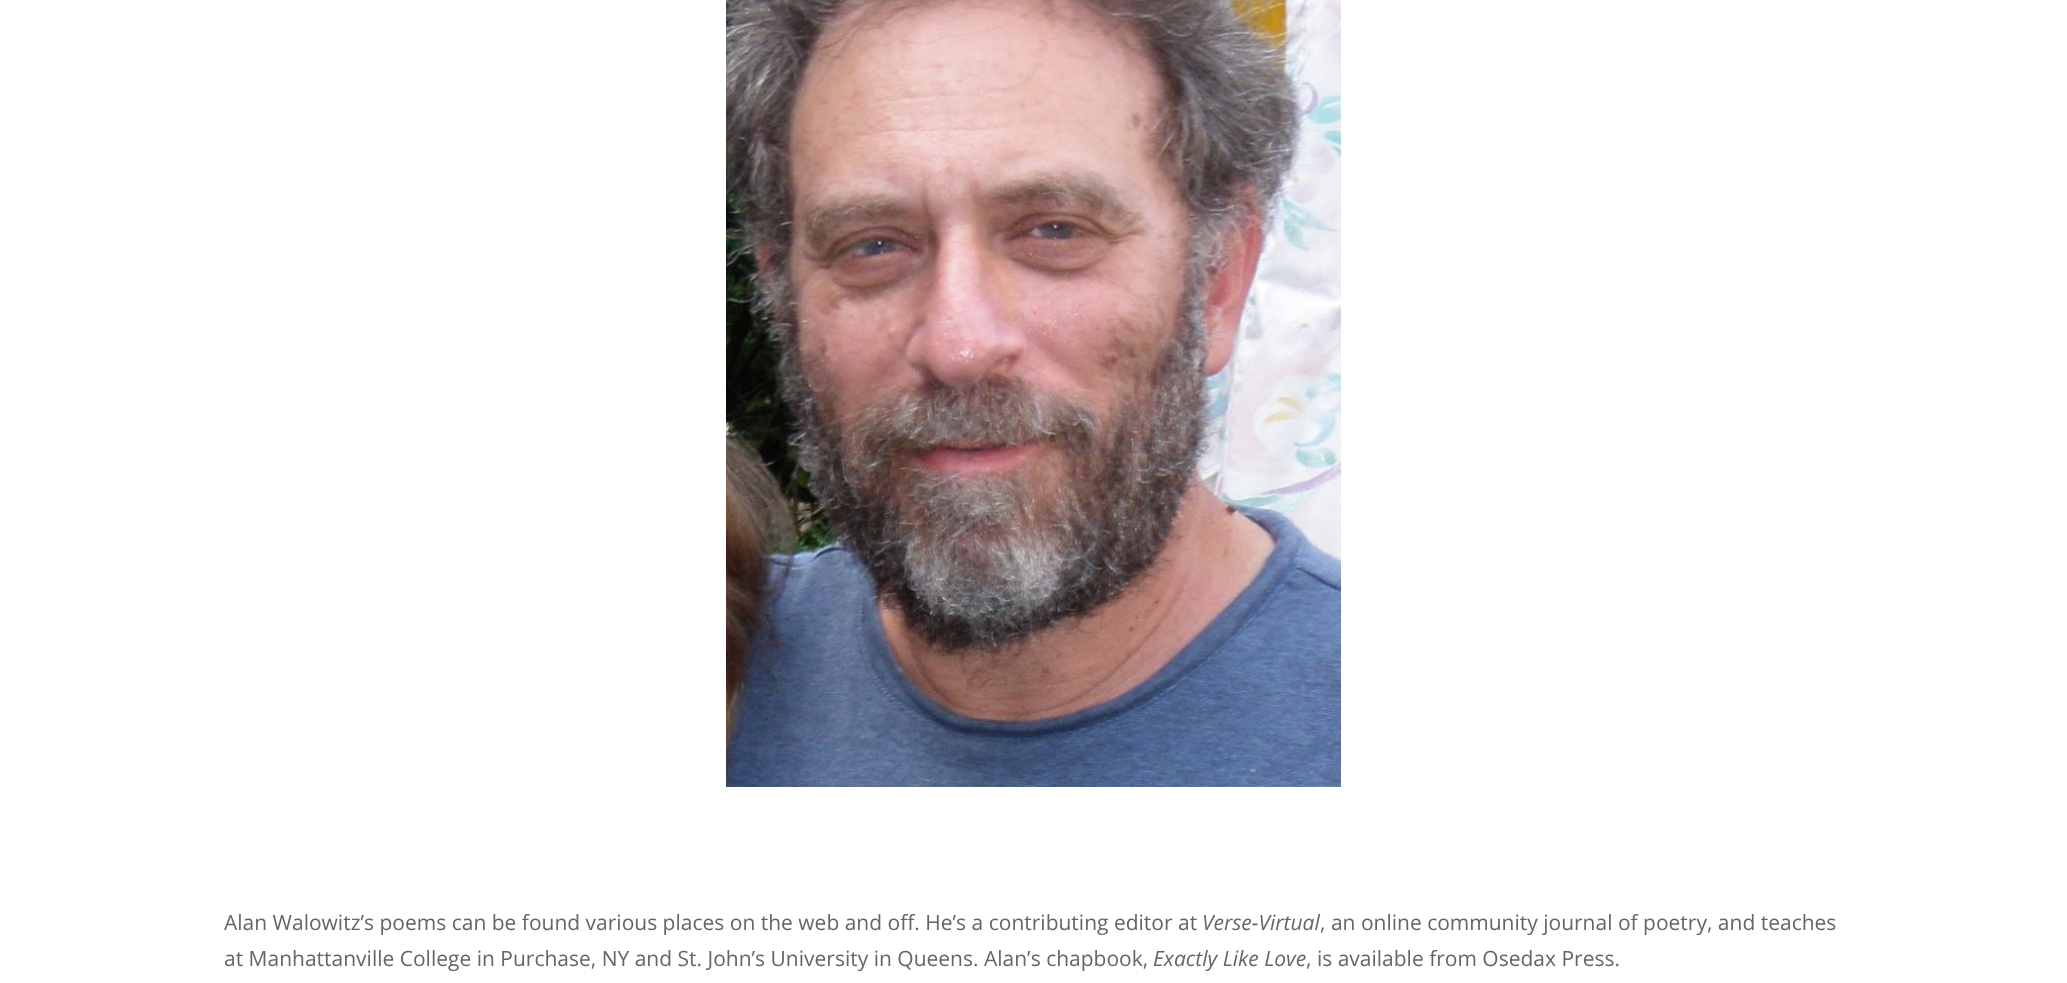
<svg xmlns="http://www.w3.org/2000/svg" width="2067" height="983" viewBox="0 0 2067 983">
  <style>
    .t1 { font: 21px Open Sans; fill: #666; }
    .t2 { font: italic 21px Open Sans; fill: #666; }
  </style>
  <rect width="100%" height="100%" fill="#fff"/>
  <image x="726" y="0" width="615" height="787" href="images/1.png"/>
  <text x="224" y="930" class="t1">Alan Walowitz’s poems can be found various places on the web and off. He’s a contributing editor at</text>
  <text x="1202" y="930" class="t2">Verse-Virtual</text>
  <text x="1320" y="930" class="t1">, an online community journal of poetry, and teaches</text>
  <text x="224" y="966" class="t1">at Manhattanville College in Purchase, NY and St. John’s University in Queens. Alan’s chapbook,</text>
  <text x="1153" y="966" class="t2">Exactly Like Love</text>
  <text x="1306" y="966" class="t1">, is available from Osedax Press.</text>
</svg>
